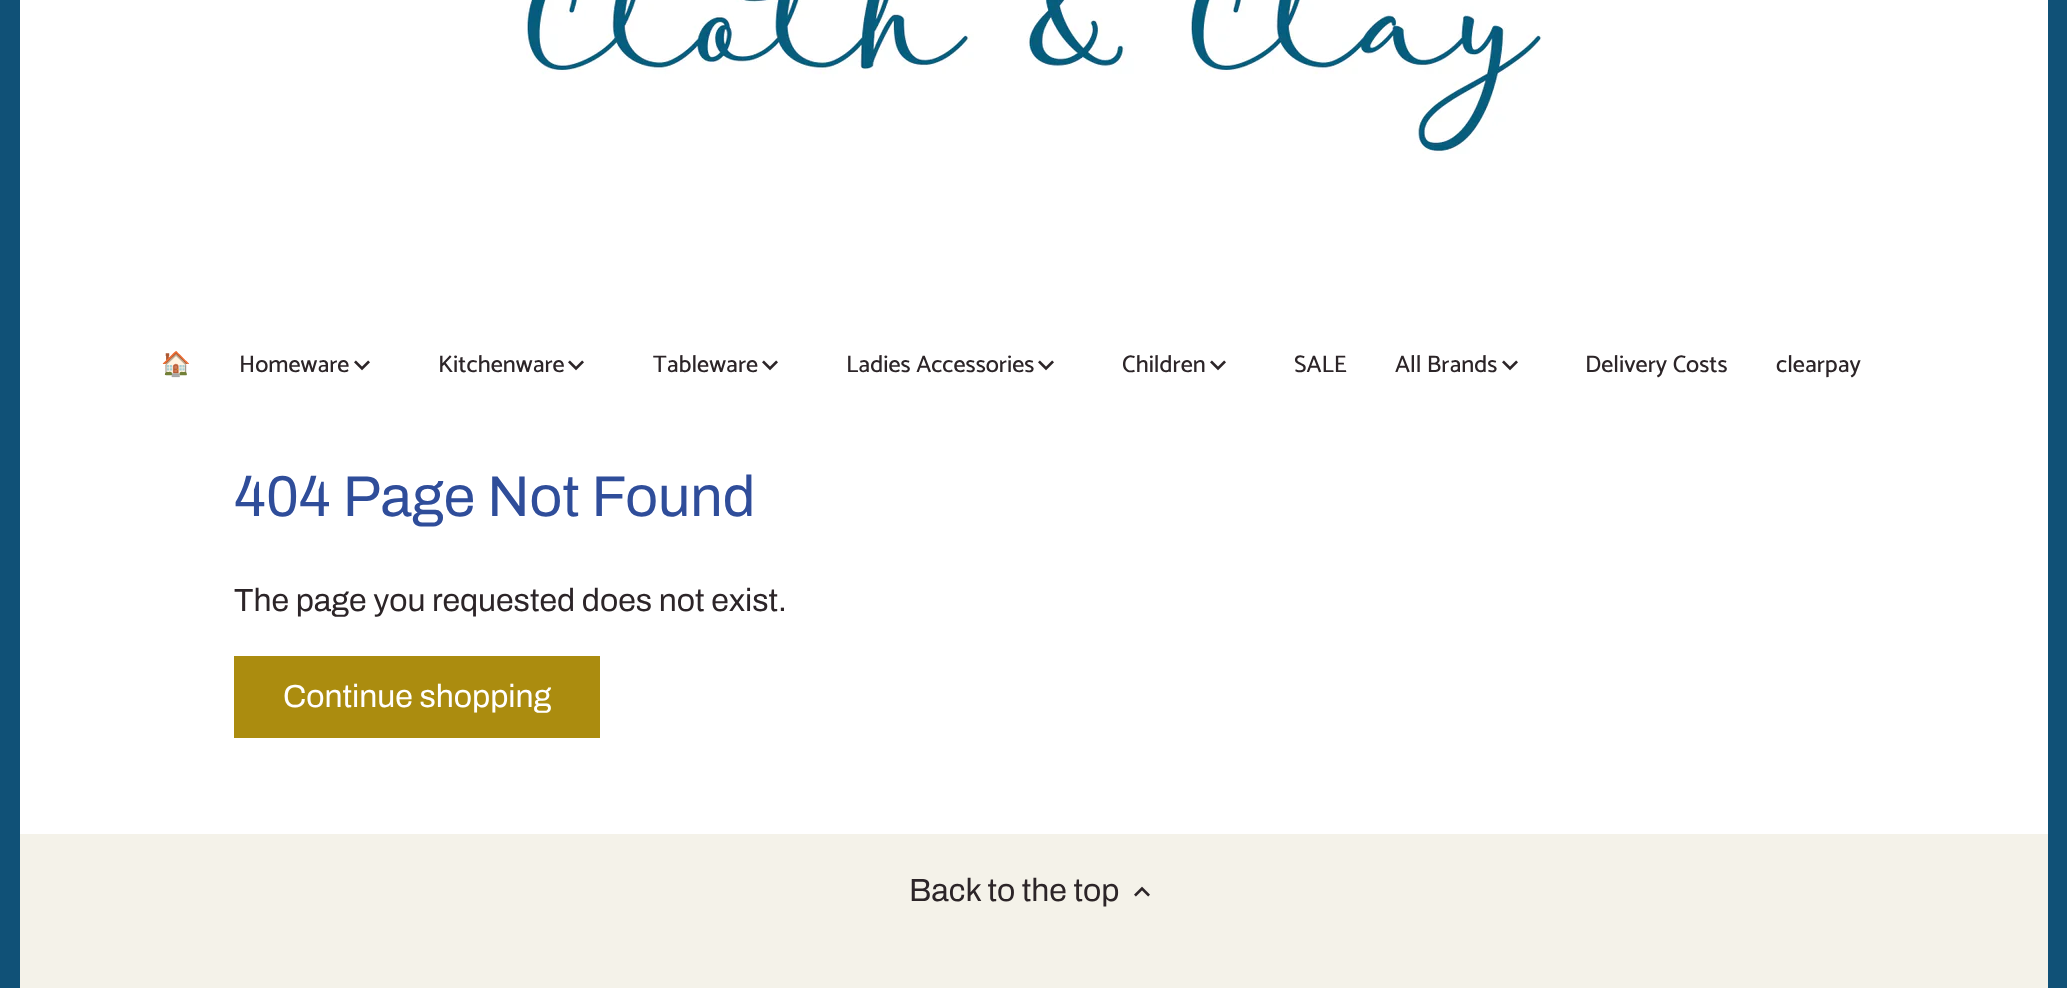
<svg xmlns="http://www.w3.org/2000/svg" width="2067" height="988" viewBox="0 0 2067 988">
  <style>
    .t1 { font: 24px Noto Color Emoji; fill: #2c2528; }
    .t2 { font: 500 24px Catamaran; fill: #2c2528; }
    .t3 { font: 57.5px Archivo; fill: #2f4d9a; }
    .t4 { font: 32px Archivo; fill: #2c2528; }
    .t5 { font: 32px Archivo; fill: #fff; }
  </style>
  <rect width="100%" height="100%" fill="#f4f2e9"/>
  <rect x="10" y="-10" width="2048" height="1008" fill="none" stroke="#105177" stroke-width="20"/>
  <rect x="20" y="0" width="2028" height="834" fill="#fff"/>
  <image x="526" y="0" width="1016" height="154" href="images/1.png"/>
  <text x="161" y="372" class="t1">🏠</text>
  <text x="239" y="372" class="t2">Homeware</text>
  <image x="354" y="360" width="16" height="11" href="images/2.png"/>
  <text x="438" y="372" class="t2">Kitchenware</text>
  <image x="568" y="360" width="16" height="11" href="images/2.png"/>
  <text x="653" y="372" class="t2">Tableware</text>
  <image x="762" y="360" width="16" height="11" href="images/2.png"/>
  <text x="846" y="372" class="t2">Ladies Accessories</text>
  <image x="1038" y="360" width="16" height="11" href="images/2.png"/>
  <text x="1122" y="372" class="t2">Children</text>
  <image x="1210" y="360" width="16" height="11" href="images/2.png"/>
  <text x="1294" y="372" class="t2">SALE</text>
  <text x="1395" y="372" class="t2">All Brands</text>
  <image x="1502" y="360" width="16" height="11" href="images/2.png"/>
  <text x="1585" y="372" class="t2">Delivery Costs</text>
  <text x="1776" y="372" class="t2">clearpay</text>
  <text x="234" y="516" class="t3">404 Page Not Found</text>
  <text x="234" y="611" class="t4">The page you requested does not exist.</text>
  <rect x="234" y="656" width="366" height="82" fill="#ab8c0f"/>
  <text x="283" y="707" class="t5">Continue shopping</text>
  <text x="909" y="901" class="t4">Back to the top</text>
  <image x="1134" y="886" width="16" height="11" href="images/3.png"/>
</svg>
